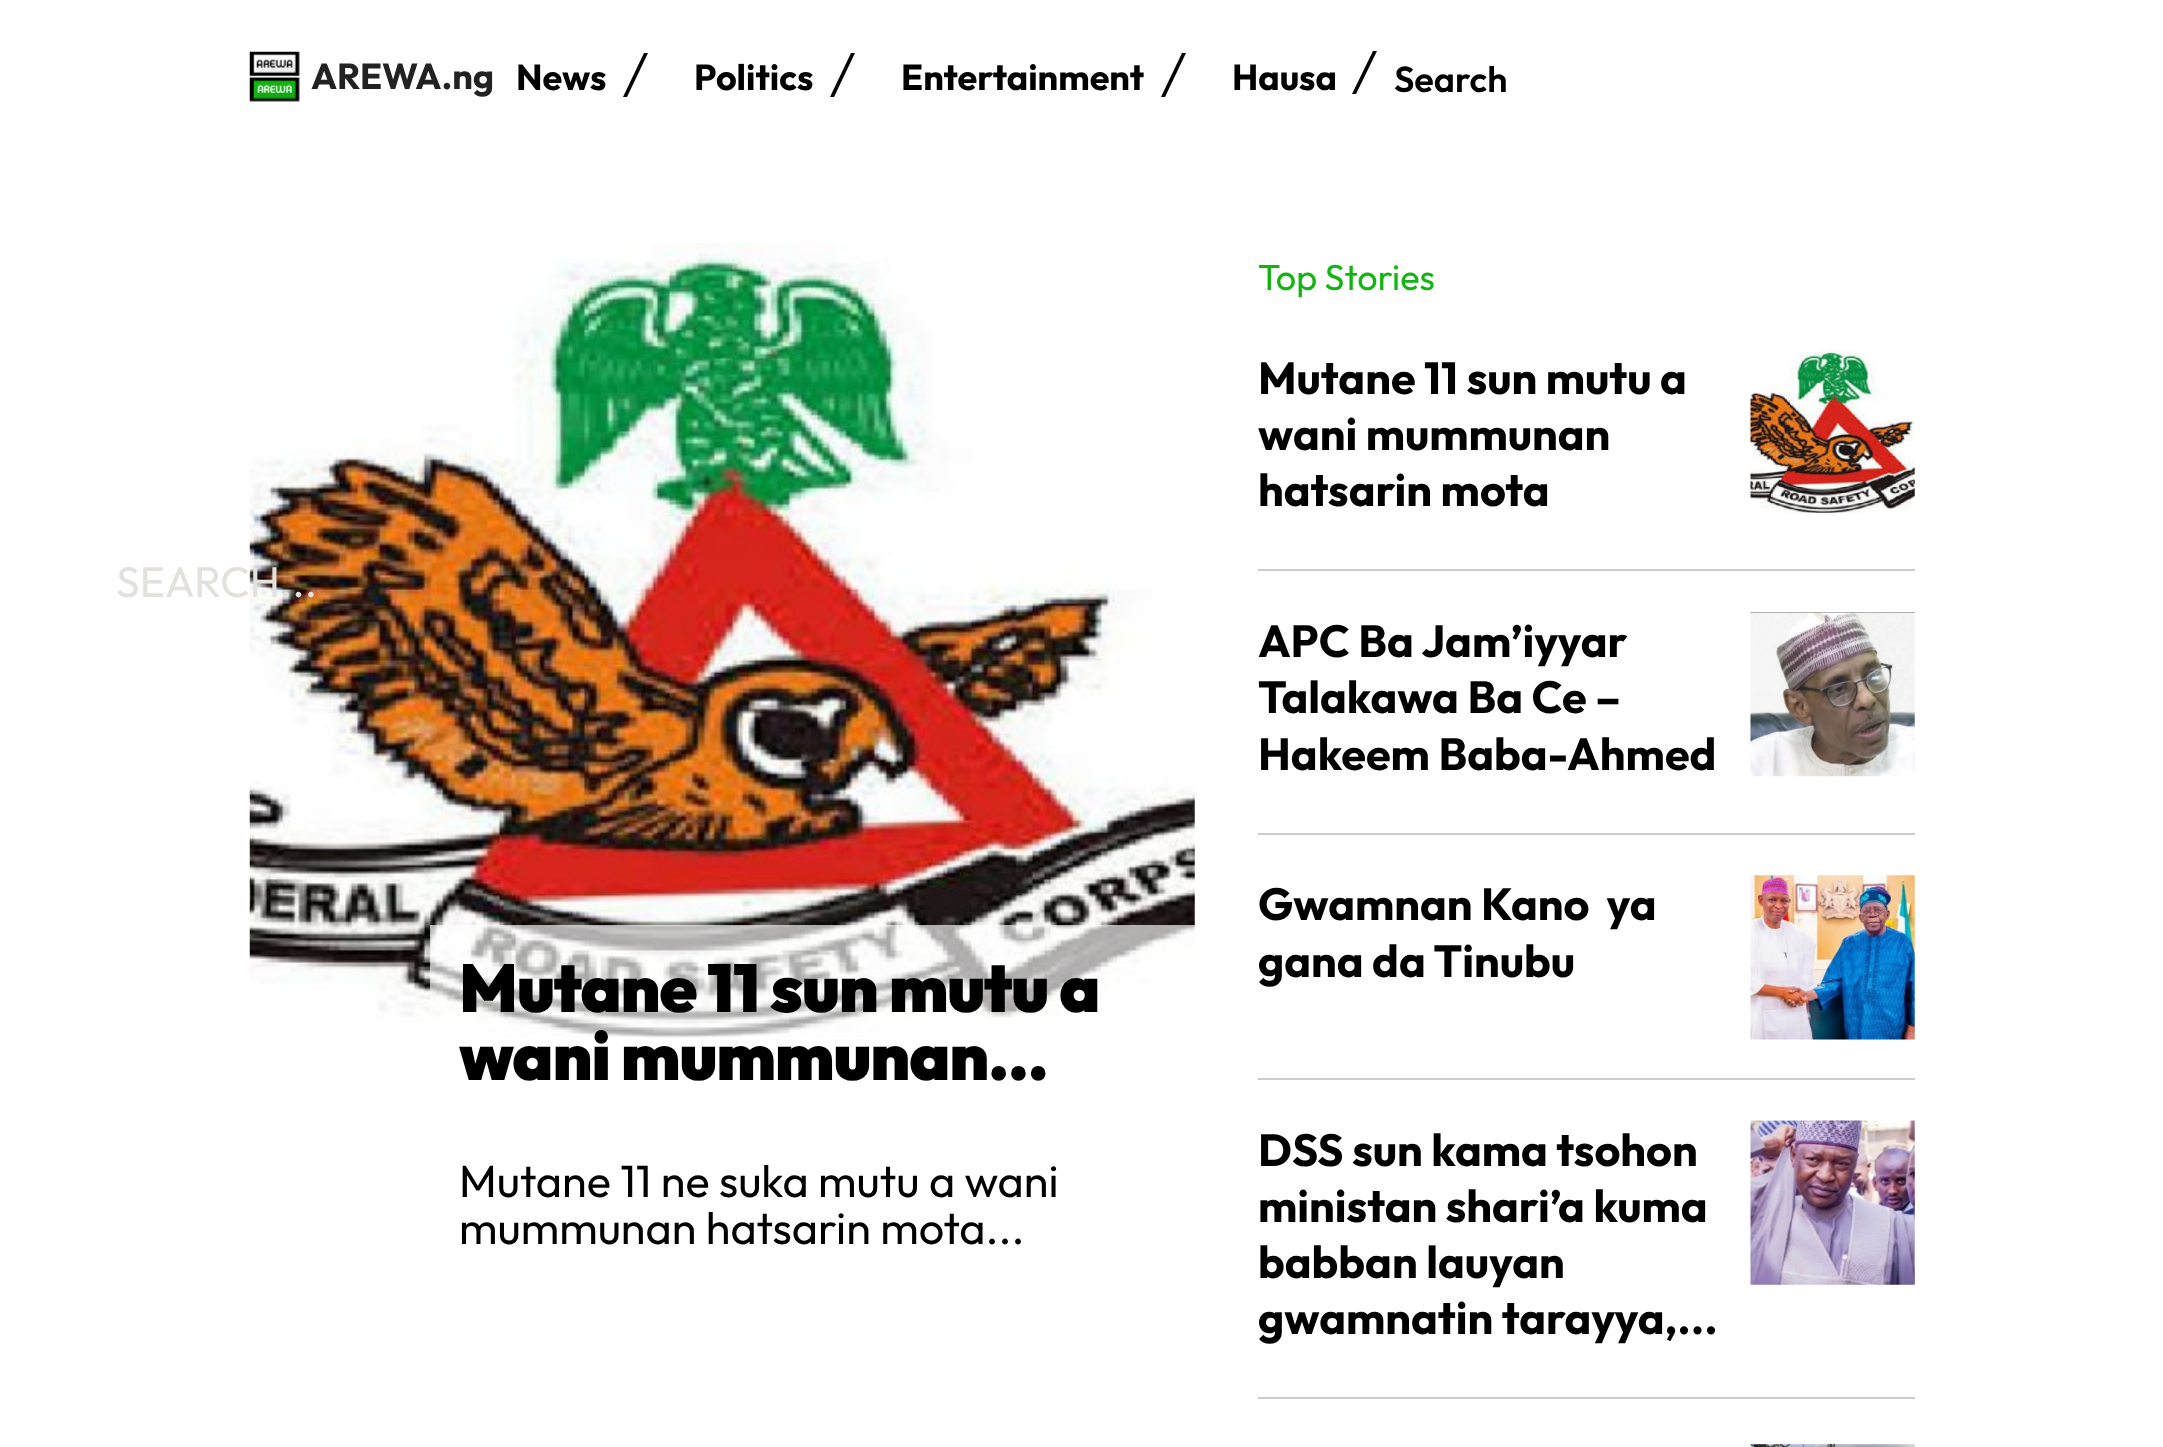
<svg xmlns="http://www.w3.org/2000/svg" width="2163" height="1447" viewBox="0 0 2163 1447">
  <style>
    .t1 { font: 42.75px Outfit; fill: #e4e0de; }
    .t2 { font: bold 36px Outfit; fill: #222; }
    .t3 { font: bold 36px Outfit; fill: #000; }
    .t4 { font: 600 36px Outfit; fill: #000; }
    .t5 { font: 900 67.5px Outfit; letter-spacing: -1.1px; fill: #000; }
    .t6 { font: 45px Outfit; fill: #000; }
    .t7 { font: 36px Outfit; fill: #10b510; }
    .t8 { font: bold 45px Outfit; fill: #000; }
  </style>
  <rect width="100%" height="100%" fill="#fff"/>
  <image x="249" y="243" width="946" height="795" href="images/2.png"/>
  <text x="116" y="597" class="t1">SEARCH...</text>
  <image x="249" y="51" width="51" height="51" href="images/1.png"/>
  <text x="311" y="89" class="t2">AREWA.ng</text>
  <text x="516" y="90" class="t3">News</text>
  <path d="M644 53L623 97H627L648 53Z" fill="#000"/>
  <text x="694" y="90" class="t3">Politics</text>
  <path d="M851 53L830 97H834L855 53Z" fill="#000"/>
  <text x="901" y="90" class="t3">Entertainment</text>
  <path d="M1182 53L1161 97H1165L1186 53Z" fill="#000"/>
  <text x="1232" y="90" class="t3">Hausa</text>
  <path d="M1373 51L1352 94H1356L1377 51Z" fill="#000"/>
  <text x="1394" y="92" class="t4">Search</text>
  <rect x="430" y="925" width="765" height="113" fill="#ffffffa8"/>
  <text x="459" y="1012" class="t5">Mutane 11 sun mutu a</text>
  <text x="459" y="1080" class="t5">wani mummunan...</text>
  <text x="459" y="1197" class="t6">Mutane 11 ne suka mutu a wani</text>
  <text x="459" y="1244" class="t6">mummunan hatsarin mota...</text>
  <text x="1258" y="290" class="t7">Top Stories</text>
  <text x="1258" y="394" class="t8">Mutane 11 sun mutu a</text>
  <text x="1258" y="450" class="t8">wani mummunan</text>
  <text x="1258" y="506" class="t8">hatsarin mota</text>
  <image x="1750" y="349" width="165" height="164" href="images/3.png"/>
  <rect x="1258" y="569" width="657" height="2" fill="#ccc"/>
  <text x="1258" y="657" class="t8">APC Ba Jam’iyyar</text>
  <text x="1258" y="713" class="t8">Talakawa Ba Ce –</text>
  <text x="1258" y="770" class="t8">Hakeem Baba-Ahmed</text>
  <image x="1750" y="612" width="165" height="165" href="images/4.png"/>
  <rect x="1258" y="833" width="657" height="2" fill="#ccc"/>
  <text x="1258" y="920" class="t8" xml:space="preserve">Gwamnan Kano  ya</text>
  <text x="1258" y="977" class="t8">gana da Tinubu</text>
  <image x="1750" y="875" width="165" height="165" href="images/5.png"/>
  <rect x="1258" y="1078" width="657" height="2" fill="#ccc"/>
  <text x="1258" y="1166" class="t8">DSS sun kama tsohon</text>
  <text x="1258" y="1222" class="t8">ministan shari’a kuma</text>
  <text x="1258" y="1278" class="t8">babban lauyan</text>
  <text x="1258" y="1334" class="t8">gwamnatin tarayya,...</text>
  <image x="1750" y="1120" width="165" height="165" href="images/6.png"/>
  <rect x="1258" y="1397" width="657" height="2" fill="#ccc"/>
  <image x="1750" y="1440" width="165" height="7" href="images/7.png"/>
</svg>
